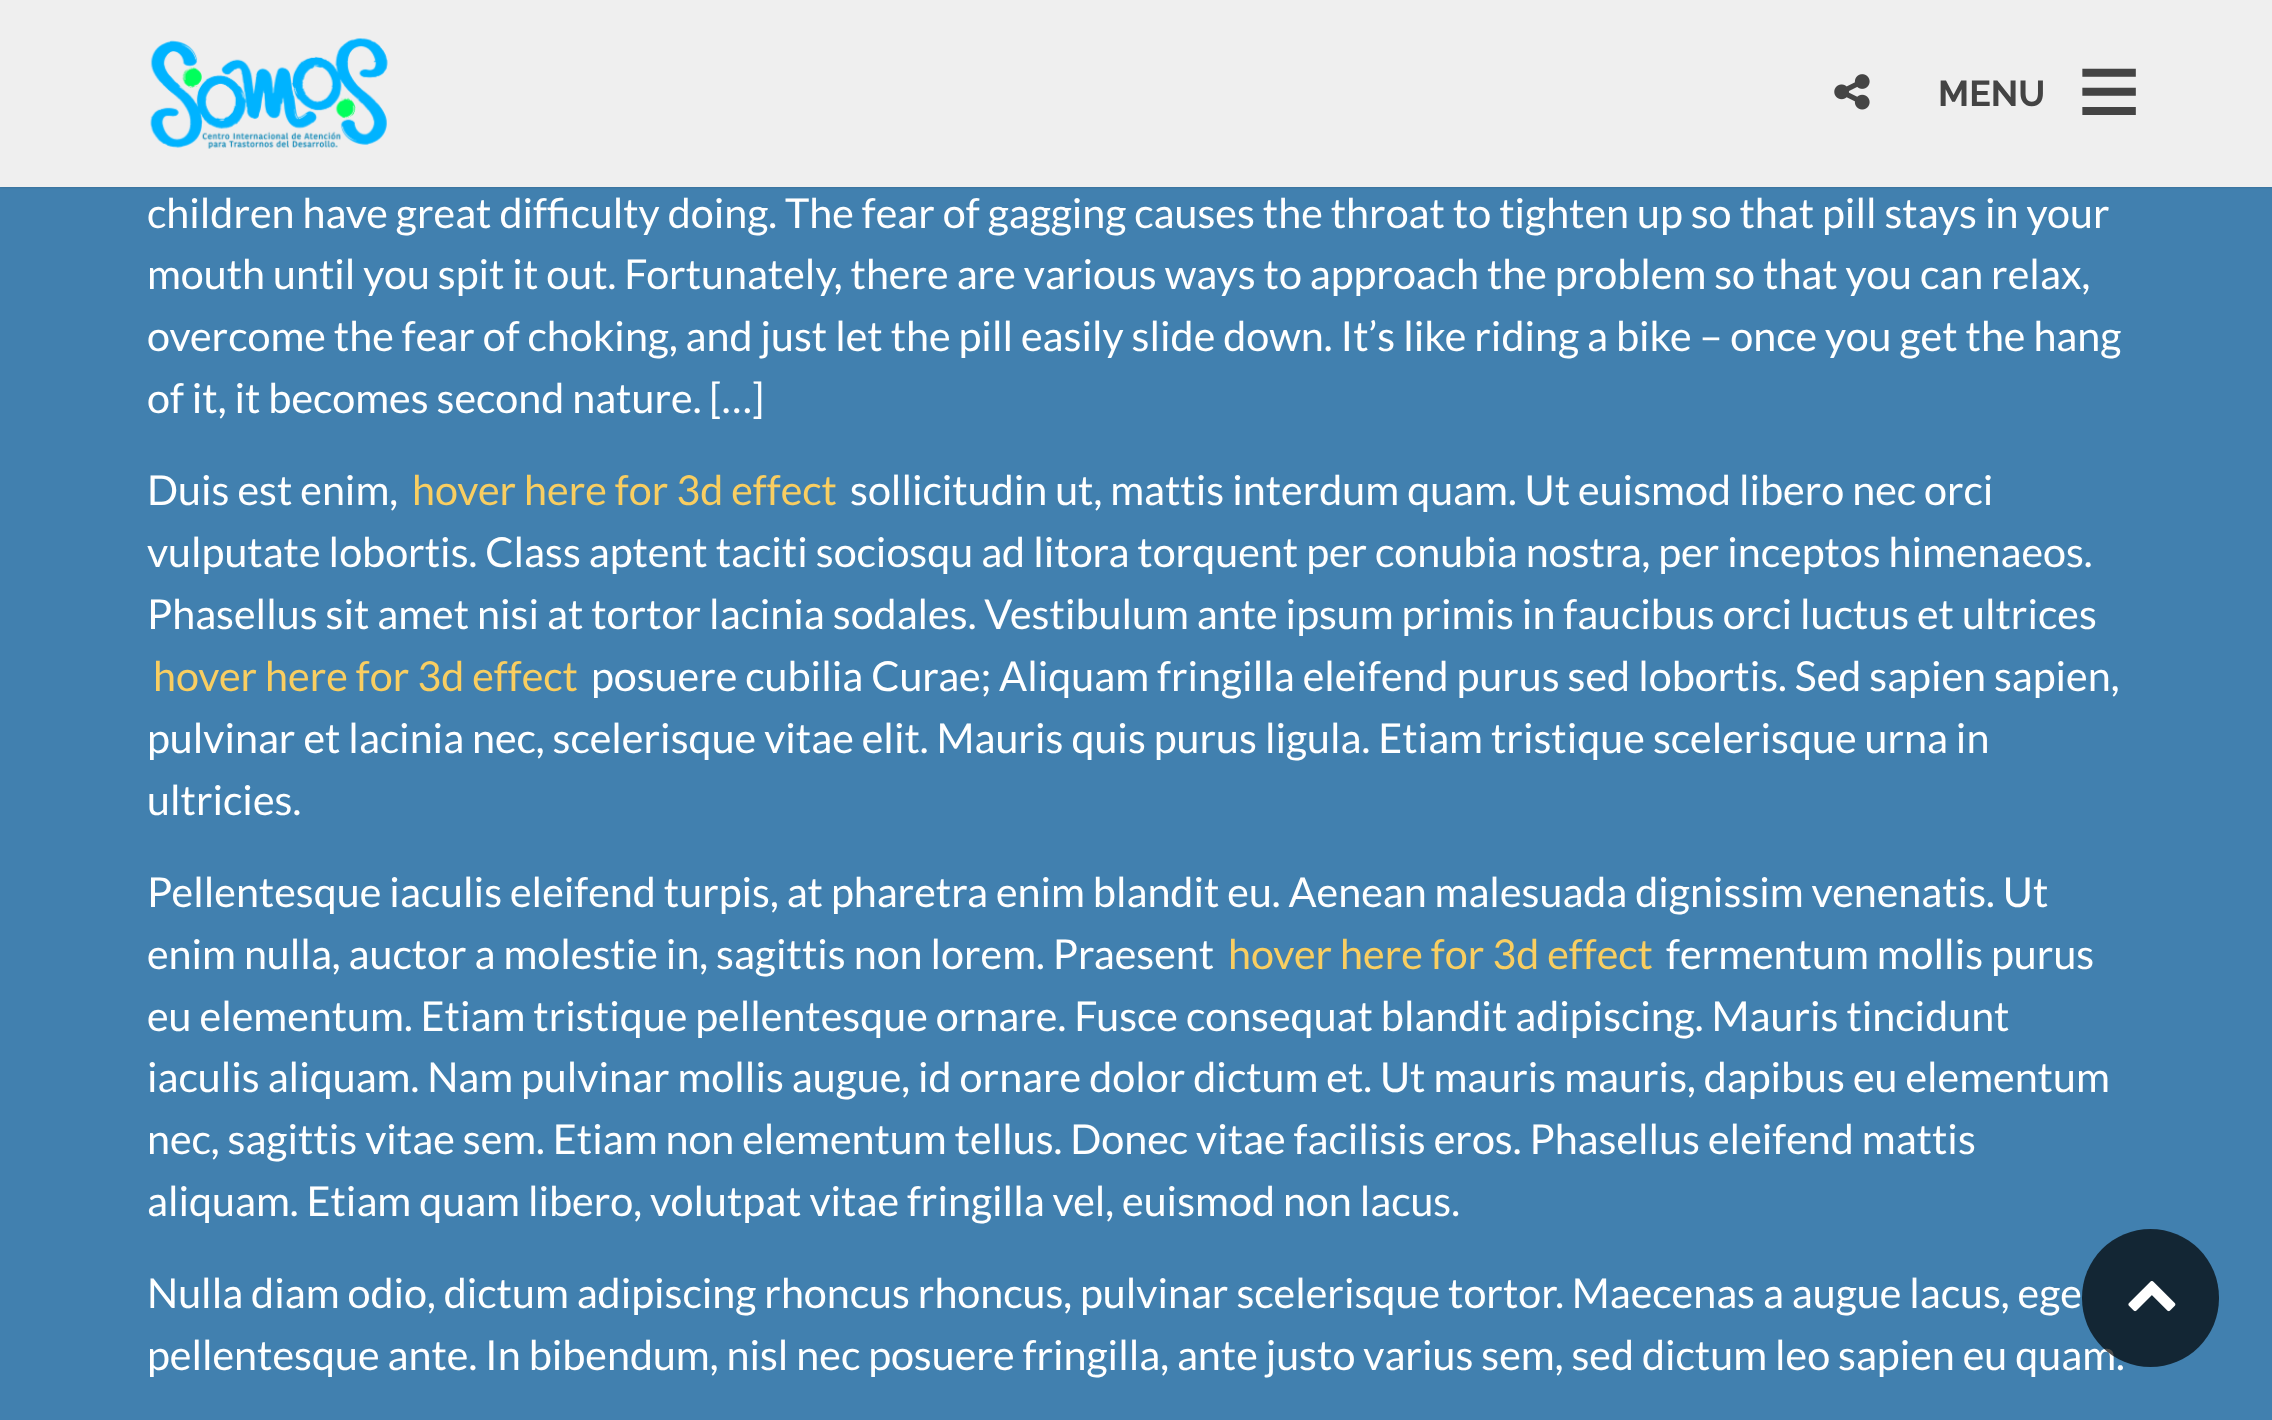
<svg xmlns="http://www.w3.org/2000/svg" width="2272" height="1420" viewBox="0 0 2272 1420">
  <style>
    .t1 { font: bold 36px Raleway; fill: #444; }
    .t2 { font: bold 110px Liberation Sans; fill: #444; }
    .t3 { font: 41.25px Lato; fill: #fff; }
    .t4 { font: 41.25px Lato; fill: #f9ce61; }
  </style>
  <rect width="100%" height="100%" fill="#4180af"/>
  <rect x="0" y="0" width="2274" height="187" fill="#00000033" filter="blur(1.5px)"/>
  <rect x="0" y="0" width="2272" height="187" fill="#efefef"/>
  <image x="150" y="38" width="238" height="111" href="images/1.png"/>
  <image x="1834" y="74" width="36" height="36" href="images/2.png"/>
  <text x="1938" y="106" class="t1">MENU</text>
  <text x="2077" y="128" class="t2">≡</text>
  <text x="147" y="228" class="t3">children have great difficulty doing. The fear of gagging causes the throat to tighten up so that pill stays in your</text>
  <text x="147" y="289" class="t3">mouth until you spit it out. Fortunately, there are various ways to approach the problem so that you can relax,</text>
  <text x="147" y="351" class="t3">overcome the fear of choking, and just let the pill easily slide down. It’s like riding a bike – once you get the hang</text>
  <text x="147" y="413" class="t3">of it, it becomes second nature. […]</text>
  <text x="147" y="505" class="t3">Duis est enim,</text>
  <text x="412" y="505" class="t4">hover here for 3d effect</text>
  <text x="850" y="505" class="t3">sollicitudin ut, mattis interdum quam. Ut euismod libero nec orci</text>
  <text x="147" y="567" class="t3">vulputate lobortis. Class aptent taciti sociosqu ad litora torquent per conubia nostra, per inceptos himenaeos.</text>
  <text x="147" y="629" class="t3">Phasellus sit amet nisi at tortor lacinia sodales. Vestibulum ante ipsum primis in faucibus orci luctus et ultrices</text>
  <text x="153" y="691" class="t4">hover here for 3d effect</text>
  <text x="591" y="691" class="t3">posuere cubilia Curae; Aliquam fringilla eleifend purus sed lobortis. Sed sapien sapien,</text>
  <text x="147" y="753" class="t3">pulvinar et lacinia nec, scelerisque vitae elit. Mauris quis purus ligula. Etiam tristique scelerisque urna in</text>
  <text x="147" y="815" class="t3">ultricies.</text>
  <text x="147" y="907" class="t3">Pellentesque iaculis eleifend turpis, at pharetra enim blandit eu. Aenean malesuada dignissim venenatis. Ut</text>
  <text x="147" y="969" class="t3">enim nulla, auctor a molestie in, sagittis non lorem. Praesent</text>
  <text x="1228" y="969" class="t4">hover here for 3d effect</text>
  <text x="1666" y="969" class="t3">fermentum mollis purus</text>
  <text x="147" y="1031" class="t3">eu elementum. Etiam tristique pellentesque ornare. Fusce consequat blandit adipiscing. Mauris tincidunt</text>
  <text x="147" y="1092" class="t3">iaculis aliquam. Nam pulvinar mollis augue, id ornare dolor dictum et. Ut mauris mauris, dapibus eu elementum</text>
  <text x="147" y="1154" class="t3">nec, sagittis vitae sem. Etiam non elementum tellus. Donec vitae facilisis eros. Phasellus eleifend mattis</text>
  <text x="147" y="1216" class="t3">aliquam. Etiam quam libero, volutpat vitae fringilla vel, euismod non lacus.</text>
  <text x="147" y="1308" class="t3">Nulla diam odio, dictum adipiscing rhoncus rhoncus, pulvinar scelerisque tortor. Maecenas a augue lacus, ege</text>
  <text x="147" y="1370" class="t3">pellentesque ante. In bibendum, nisl nec posuere fringilla, ante justo varius sem, sed dictum leo sapien eu quam.</text>
  <rect x="2082" y="1229" width="137" height="138" rx="68.5" fill="#000000b3"/>
  <image x="2128" y="1281" width="48" height="31" href="images/3.png"/>
</svg>
